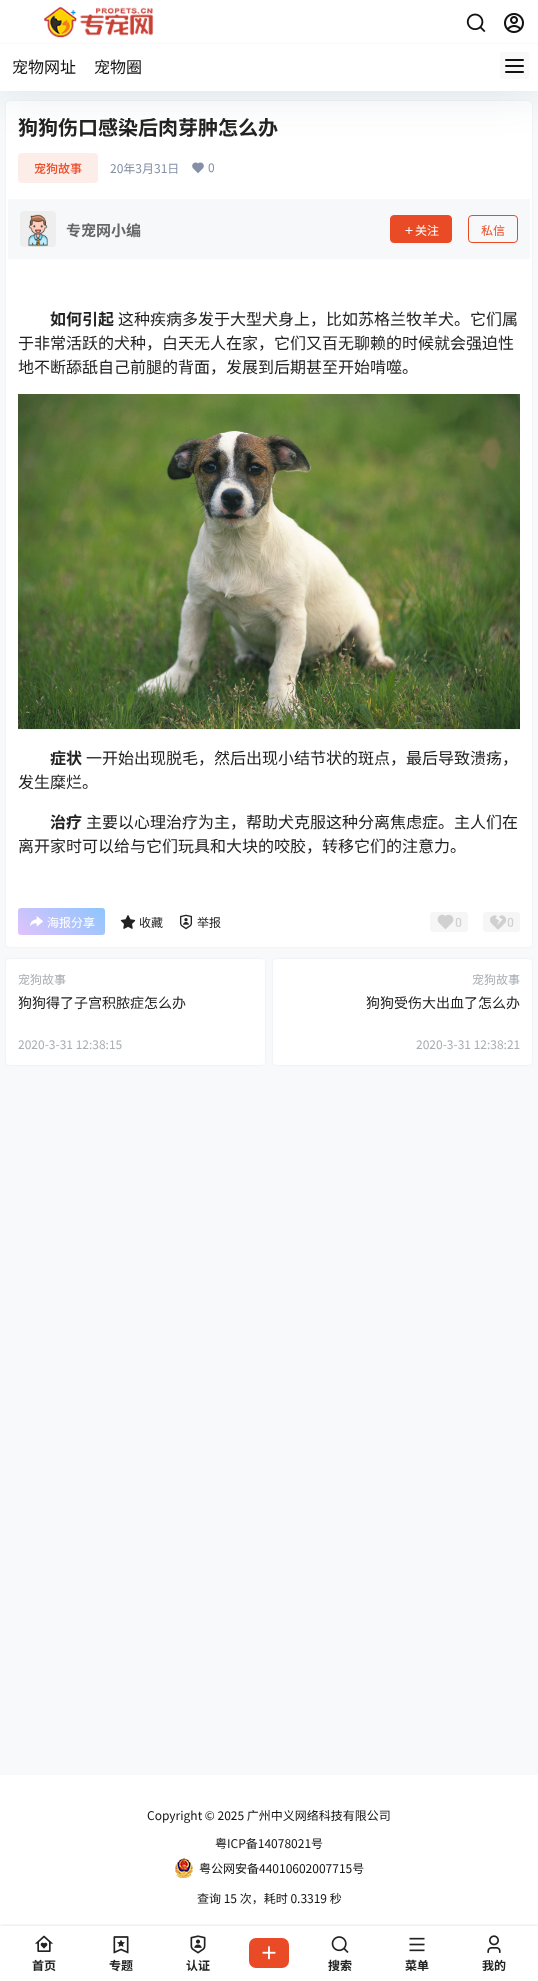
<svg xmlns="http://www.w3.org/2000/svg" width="538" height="1981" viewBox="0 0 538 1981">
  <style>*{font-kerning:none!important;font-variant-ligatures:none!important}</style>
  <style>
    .t1 { font: 16px Noto Sans CJK SC; fill: #121212; }
    .t2 { font: bold 20px Noto Sans CJK SC; fill: #222; }
    .t3 { font: 500 12px Noto Sans CJK SC; fill: #ea4b27; }
    .t4 { font: 12px Noto Sans CJK SC; fill: #8590a6; }
    .t5 { font: bold 15px Noto Sans CJK SC; fill: #666; }
    .t6 { font: 12px Noto Sans CJK SC; fill: #fff; }
    .t7 { font: 12px Noto Sans CJK SC; fill: #ea4b27; }
    .t8 { font: bold 16px Noto Sans CJK SC; fill: #222; }
    .t9 { font: 16px Noto Sans CJK SC; fill: #222; }
    .t10 { font: 12px Noto Sans CJK SC; fill: #222; }
    .t11 { font: 500 13px DIN; fill: #d0d0d0; }
    .t12 { font: 12px Noto Sans CJK SC; fill: #aaaeb3; }
    .t13 { font: 14px Noto Sans CJK SC; fill: #222; }
    .t14 { font: 12px Noto Sans CJK SC; fill: #121212; }
    .t15 { font: bold 12px Noto Sans CJK SC; fill: #222; }
  </style>
  <defs>
    <linearGradient id="g1" gradientUnits="userSpaceOnUse" x1="37" y1="951" x2="86" y2="892"><stop offset="0" stop-color="#e0c3fc"/><stop offset="1" stop-color="#8ec5fc"/></linearGradient>
    <clipPath id="clip1"><rect x="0" y="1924" width="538" height="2"/></clipPath>
  </defs>
  <rect width="100%" height="100%" fill="#f7f9fa"/>
  <rect x="6" y="101" width="526" height="846" rx="4" fill="#627c991a" filter="blur(1px)"/>
  <rect x="6" y="101" width="526" height="846" rx="4" fill="#fff"/>
  <rect x="18" y="153" width="80" height="30" rx="4" fill="#fdede9"/>
  <rect x="0" y="5" width="538" height="91" fill="#113a5d1a" filter="blur(20px)"/>
  <rect x="0" y="0" width="538" height="91" fill="#fff"/>
  <rect x="0" y="43" width="538" height="1" fill="#f8f8f8"/>
  <image x="44" y="6" width="110" height="32" href="images/1.png"/>
  <text x="12" y="73" class="t1">宠物网址</text>
  <text x="94" y="73" class="t1">宠物圈</text>
  <image x="466" y="13" width="20" height="20" href="images/2.png"/>
  <image x="504" y="13" width="20" height="20" href="images/3.png"/>
  <rect x="500" y="52" width="29" height="27" rx="2" fill="#f9f9f9"/>
  <rect x="505" y="59" width="19" height="2" rx="1" fill="#121212"/>
  <rect x="505" y="65" width="19" height="2" rx="1" fill="#121212"/>
  <rect x="505" y="71" width="19" height="2" rx="1" fill="#121212"/>
  <text x="18" y="135" class="t2">狗狗伤口感染后肉芽肿怎么办</text>
  <text x="34" y="173" class="t3">宠狗故事</text>
  <text x="110" y="173" class="t4">20年3月31日</text>
  <image x="192" y="162" width="12" height="12" href="images/4.png"/>
  <text x="208" y="172" class="t4">0</text>
  <rect x="8" y="199" width="522" height="60" fill="#f7f8fa"/>
  <rect x="20" y="211" width="36" height="36" rx="4" fill="#eee"/>
  <image x="27" y="214" width="22" height="33" href="images/5.png"/>
  <text x="66" y="236" class="t5">专宠网小编</text>
  <rect x="390.5" y="215.5" width="61" height="27" rx="3.5" fill="#ea4b27" stroke="#ea4b27"/>
  <image x="405" y="227" width="8" height="7" href="images/6.png"/>
  <text x="415" y="235" class="t6">关注</text>
  <rect x="468.5" y="215.5" width="49" height="27" rx="3.5" fill="none" stroke="#ea4b27"/>
  <text x="481" y="235" class="t7">私信</text>
  <text x="50" y="325" class="t8">如何引起</text>
  <text x="118" y="325" class="t9">这种疾病多发于大型犬身上，比如苏格兰牧羊犬。它们属</text>
  <text x="18" y="349" class="t9">于非常活跃的犬种，白天无人在家，它们又百无聊赖的时候就会强迫性</text>
  <text x="18" y="373" class="t9">地不断舔舐自己前腿的背面，发展到后期甚至开始啃噬。</text>
  <image x="18" y="394" width="502" height="336" href="images/7.png"/>
  <text x="50" y="764" class="t8">症状</text>
  <text x="86" y="764" class="t9">一开始出现脱毛，然后出现小结节状的斑点，最后导致溃疡，</text>
  <text x="18" y="788" class="t9">发生糜烂。</text>
  <text x="50" y="828" class="t8">治疗</text>
  <text x="86" y="828" class="t9">主要以心理治疗为主，帮助犬克服这种分离焦虑症。主人们在</text>
  <text x="18" y="852" class="t9">离开家时可以给与它们玩具和大块的咬胶，转移它们的注意力。</text>
  <rect x="18" y="908" width="87" height="27" rx="3" fill="url(#g1)"/>
  <image x="30" y="916" width="14" height="11" href="images/8.png"/>
  <text x="47" y="927" class="t6">海报分享</text>
  <image x="120" y="915" width="16" height="14" href="images/9.png"/>
  <text x="139" y="927" class="t10">收藏</text>
  <image x="180" y="914" width="12" height="16" href="images/10.png"/>
  <text x="197" y="927" class="t10">举报</text>
  <rect x="430" y="912" width="38" height="20" rx="3" fill="#f6f6f6"/>
  <image x="437" y="914" width="17" height="16" href="images/11.png"/>
  <text x="455" y="927" class="t11">0</text>
  <rect x="483" y="912" width="37" height="20" rx="3" fill="#f6f6f6"/>
  <image x="490" y="915" width="17" height="15" href="images/12.png"/>
  <text x="507" y="927" class="t11">0</text>
  <rect x="6" y="959" width="259" height="106" rx="4" fill="#627c991a" filter="blur(1px)"/>
  <rect x="6" y="959" width="259" height="106" rx="4" fill="#fff"/>
  <text x="18" y="984" class="t12">宠狗故事</text>
  <text x="18" y="1008" class="t13">狗狗得了子宫积脓症怎么办</text>
  <text x="18" y="1049" class="t12">2020-3-31 12:38:15</text>
  <rect x="273" y="959" width="259" height="106" rx="4" fill="#627c991a" filter="blur(1px)"/>
  <rect x="273" y="959" width="259" height="106" rx="4" fill="#fff"/>
  <text x="472" y="984" class="t12">宠狗故事</text>
  <text x="366" y="1008" class="t13">狗狗受伤大出血了怎么办</text>
  <text x="416" y="1049" class="t12">2020-3-31 12:38:21</text>
  <rect x="0" y="1775" width="538" height="206" fill="#fff"/>
  <text x="147" y="1820" class="t14">Copyright © 2025 广州中义网络科技有限公司</text>
  <text x="215" y="1848" class="t14">粤ICP备14078021号</text>
  <image x="175" y="1858" width="18" height="20" href="images/13.png"/>
  <text x="199" y="1873" class="t14">粤公网安备44010602007715号</text>
  <text x="197" y="1903" class="t14">查询 15 次，耗时 0.3319 秒</text>
  <g clip-path="url(#clip1)">
    <rect x="0" y="1925" width="538" height="55" fill="#1a1a1a1a" filter="blur(1.5px)"/>
  </g>
  <image x="35" y="1935" width="18" height="17" href="images/14.png"/>
  <text x="32" y="1970" class="t15">首页</text>
  <image x="113" y="1936" width="16" height="18" href="images/15.png"/>
  <text x="109" y="1970" class="t15">专题</text>
  <image x="190" y="1935" width="16" height="19" href="images/16.png"/>
  <text x="186" y="1970" class="t15">认证</text>
  <rect x="249" y="1938" width="40" height="30" rx="7" fill="#ea4b27"/>
  <image x="262" y="1946" width="14" height="14" href="images/17.png"/>
  <image x="331" y="1936" width="18" height="17" href="images/18.png"/>
  <text x="328" y="1970" class="t15">搜索</text>
  <image x="409" y="1937" width="16" height="15" href="images/19.png"/>
  <text x="405" y="1970" class="t15">菜单</text>
  <image x="487" y="1935" width="14" height="18" href="images/20.png"/>
  <text x="482" y="1970" class="t15">我的</text>
</svg>
